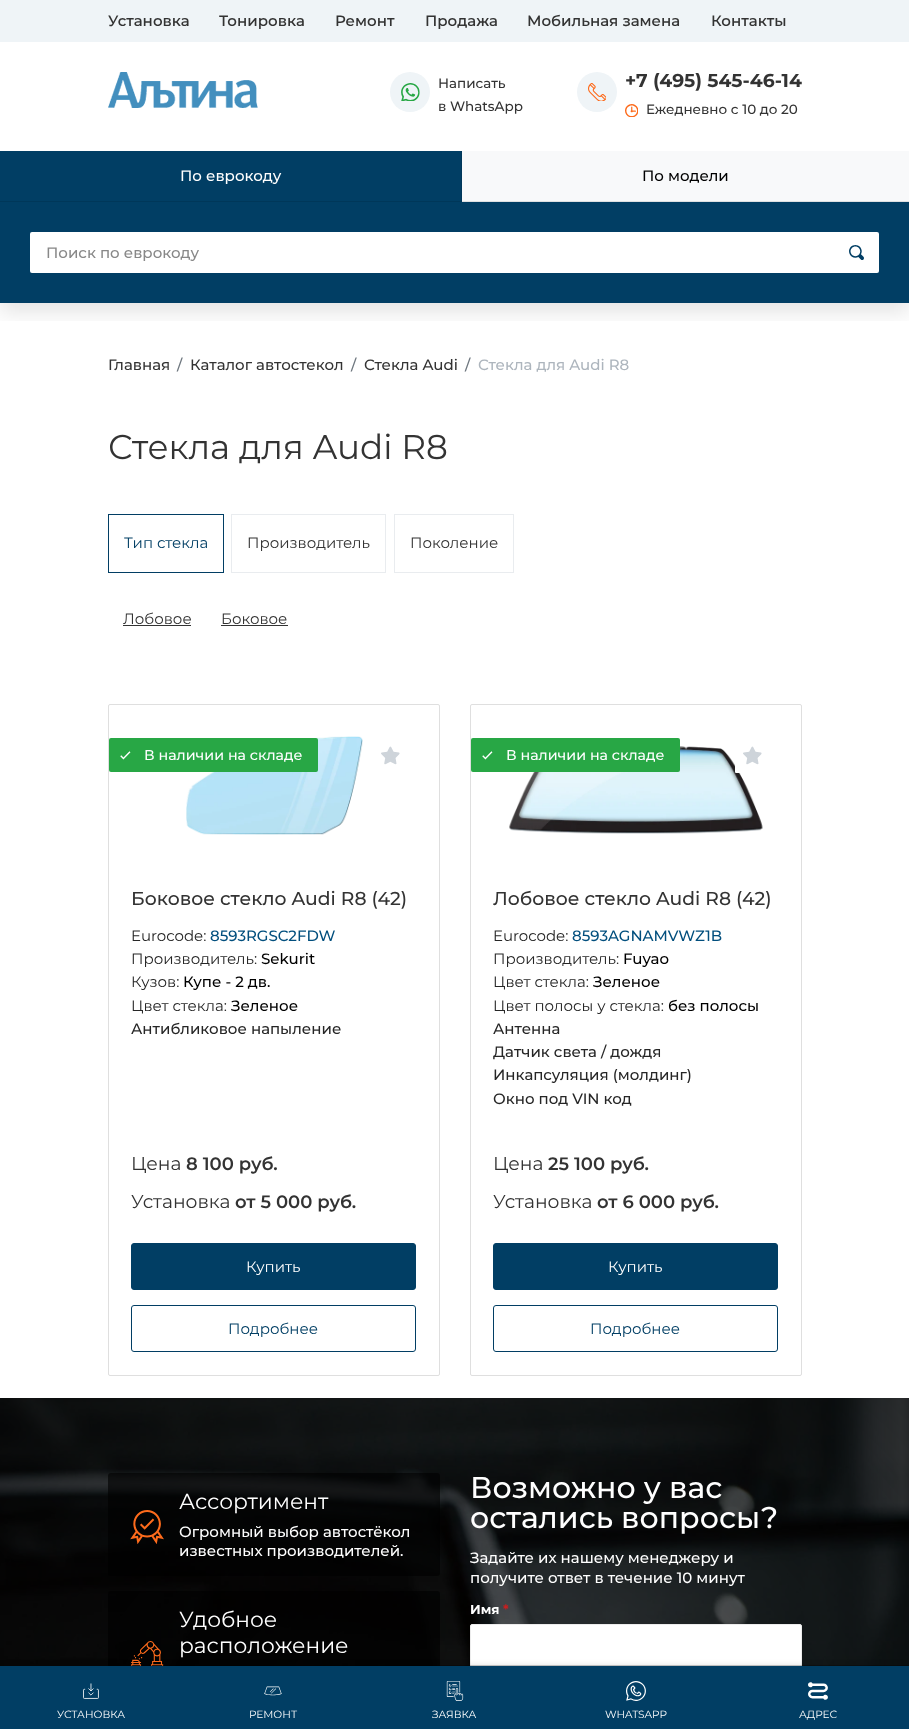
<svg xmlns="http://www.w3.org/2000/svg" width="909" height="1729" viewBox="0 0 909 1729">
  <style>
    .t1 { font: 500 15px 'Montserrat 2'; fill: #333; }
    .t2 { font: 500 13.5px Montserrat; fill: #333; }
    .t3 { font: bold 18.75px Montserrat; fill: #333; }
    .t4 { font: 500 15px Montserrat; fill: #fff; }
    .t5 { font: 500 15px Montserrat; fill: #000; }
    .t6 { font: 500 15px Montserrat; fill: #888; }
    .t7 { font: 500 15px Montserrat; fill: #333; }
    .t8 { font: 500 15px Montserrat; fill: #6c757d; }
    .t9 { font: 500 15px Montserrat; fill: #adb5bd; }
    .t10 { font: 34.25px Montserrat; fill: #333; }
    .t11 { font: 15px Montserrat; fill: #013e64; }
    .t12 { font: 15px Montserrat; fill: #333; }
    .t13 { font: 500 14.25px Montserrat; fill: #fff; }
    .t14 { font: 500 18.75px Montserrat; fill: #333; }
    .t15 { font: 15px Montserrat; fill: #262626; }
    .t16 { font: 500 15px Montserrat; fill: #014e7d; }
    .t17 { font: 500 15px Montserrat; fill: #262626; }
    .t18 { font: 18.75px Montserrat; fill: #333; }
    .t19 { font: 600 18px Montserrat; fill: #333; }
    .t20 { font: 15px Montserrat; fill: #fff; }
    .t21 { font: 21.75px Montserrat; fill: #fff; }
    .t22 { font: 500 30px Montserrat; fill: #fff; }
    .t23 { font: bold 13px Montserrat; fill: #fff; }
    .t24 { font: bold 13px Montserrat; fill: #c91f1f; }
    .t25 { font: 10.5px Montserrat; fill: #fff; }
  </style>
  <defs>
    <clipPath id="clip1"><rect x="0" y="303" width="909" height="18"/></clipPath>
  </defs>
  <rect width="100%" height="100%" fill="#fff"/>
  <g clip-path="url(#clip1)">
    <rect x="0" y="10" width="909" height="303" fill="#0000001a" filter="blur(10px)"/>
  </g>
  <rect x="0" y="0" width="909" height="42" fill="#eff4f7"/>
  <text x="108" y="26" class="t1">Установка</text>
  <text x="219" y="26" class="t1">Тонировка</text>
  <text x="335" y="26" class="t1">Ремонт</text>
  <text x="425" y="26" class="t1">Продажа</text>
  <text x="527" y="26" class="t1">Мобильная замена</text>
  <text x="711" y="26" class="t1">Контакты</text>
  <image x="108" y="72" width="150" height="36" href="images/1.png"/>
  <circle cx="410" cy="92" r="20" fill="#eff4f7"/>
  <image x="401" y="83" width="19" height="18" href="images/2.png"/>
  <text x="438" y="88" class="t2">Написать</text>
  <text x="438" y="111" class="t2">в WhatsApp</text>
  <circle cx="597" cy="92" r="20" fill="#eff4f7"/>
  <image x="588" y="83" width="18" height="18" href="images/3.png"/>
  <text x="625" y="87" class="t3">+7 (495) 545-46-14</text>
  <image x="625" y="104" width="13" height="13" href="images/4.png"/>
  <text x="646" y="114" class="t2">Ежедневно с 10 до 20</text>
  <rect x="0" y="151" width="462" height="51" fill="#013e64"/>
  <path d="M462 151V202L461 201V151Z" fill="#01385a"/>
  <path d="M462 202H0V201H461Z" fill="#0000001a"/>
  <text x="180" y="181" class="t4">По еврокоду</text>
  <rect x="462" y="151" width="447" height="50" fill="#f8f9fa"/>
  <rect x="462" y="201" width="447" height="1" fill="#dfe0e1"/>
  <text x="642" y="181" class="t5">По модели</text>
  <rect x="0" y="202" width="909" height="101" fill="#013e64"/>
  <rect x="30" y="232" width="849" height="41" rx="2" fill="#fff"/>
  <text x="46" y="258" class="t6">Поиск по еврокоду</text>
  <image x="849" y="245" width="15" height="15" href="images/5.png"/>
  <text x="108" y="370" class="t7">Главная</text>
  <text x="177" y="370" class="t8">/</text>
  <text x="190" y="370" class="t7">Каталог автостекол</text>
  <text x="351" y="370" class="t8">/</text>
  <text x="364" y="370" class="t7">Стекла Audi</text>
  <text x="465" y="370" class="t8">/</text>
  <text x="478" y="370" class="t9">Стекла для Audi R8</text>
  <text x="108" y="459" class="t10">Стекла для Audi R8</text>
  <rect x="108.5" y="514.5" width="115" height="58" fill="none" stroke="#013e64"/>
  <text x="124" y="548" class="t11">Тип стекла</text>
  <rect x="231.5" y="514.5" width="154" height="58" fill="none" stroke="#e9ecef"/>
  <text x="247" y="548" class="t12">Производитель</text>
  <rect x="394.5" y="514.5" width="119" height="58" fill="none" stroke="#e9ecef"/>
  <text x="410" y="548" class="t12">Поколение</text>
  <text x="123" y="624" class="t12">Лобовое</text>
  <rect x="123" y="625" width="68" height="1" fill="#333"/>
  <text x="221" y="624" class="t12">Боковое</text>
  <rect x="221" y="625" width="67" height="1" fill="#333"/>
  <rect x="108.5" y="704.5" width="331" height="671" rx="1.5" fill="none" stroke="#dfdfdf"/>
  <image x="186" y="736" width="177" height="99" href="images/6.png"/>
  <image x="381" y="746" width="19" height="19" href="images/7.png"/>
  <rect x="109" y="738" width="209" height="34" rx="2" fill="#28a745"/>
  <image x="120" y="751" width="11" height="9" href="images/8.png"/>
  <text x="144" y="760" class="t13">В наличии на складе</text>
  <text x="131" y="905" class="t14">Боковое стекло Audi R8 (42)</text>
  <text x="131" y="941" class="t15">Eurocode:</text>
  <text x="210" y="941" class="t16">8593RGSC2FDW</text>
  <text x="131" y="964" class="t15">Производитель:</text>
  <text x="261" y="964" class="t5">Sekurit</text>
  <text x="131" y="987" class="t15">Кузов:</text>
  <text x="183" y="987" class="t5">Купе - 2 дв.</text>
  <text x="131" y="1011" class="t15">Цвет стекла:</text>
  <text x="231" y="1011" class="t5">Зеленое</text>
  <text x="131" y="1034" class="t17">Антибликовое напыление</text>
  <text x="131" y="1170" class="t18">Цена</text>
  <text x="186" y="1170" class="t19">8 100 руб.</text>
  <text x="131" y="1208" class="t18">Установка</text>
  <text x="235" y="1208" class="t19">от 5 000 руб.</text>
  <rect x="131.5" y="1243.5" width="284" height="46" rx="2.5" fill="#013e64" stroke="#013e64"/>
  <text x="246" y="1272" class="t20">Купить</text>
  <rect x="131.5" y="1305.5" width="284" height="46" rx="2.5" fill="none" stroke="#013e64"/>
  <text x="228" y="1334" class="t11">Подробнее</text>
  <rect x="470.5" y="704.5" width="331" height="671" rx="1.5" fill="none" stroke="#dfdfdf"/>
  <image x="509" y="745" width="254" height="89" href="images/9.png"/>
  <rect x="735" y="738" width="36" height="35" rx="1" fill="#fff"/>
  <image x="743" y="746" width="19" height="19" href="images/7.png"/>
  <rect x="471" y="738" width="209" height="34" rx="2" fill="#28a745"/>
  <image x="482" y="751" width="11" height="9" href="images/8.png"/>
  <text x="506" y="760" class="t13">В наличии на складе</text>
  <text x="493" y="905" class="t14">Лобовое стекло Audi R8 (42)</text>
  <text x="493" y="941" class="t15">Eurocode:</text>
  <text x="572" y="941" class="t16">8593AGNAMVWZ1B</text>
  <text x="493" y="964" class="t15">Производитель:</text>
  <text x="623" y="964" class="t5">Fuyao</text>
  <text x="493" y="987" class="t15">Цвет стекла:</text>
  <text x="593" y="987" class="t5">Зеленое</text>
  <text x="493" y="1011" class="t15">Цвет полосы у стекла:</text>
  <text x="668" y="1011" class="t5">без полосы</text>
  <text x="493" y="1034" class="t17">Антенна</text>
  <text x="493" y="1057" class="t17">Датчик света / дождя</text>
  <text x="493" y="1080" class="t17">Инкапсуляция (молдинг)</text>
  <text x="493" y="1104" class="t17">Окно под VIN код</text>
  <text x="493" y="1170" class="t18">Цена</text>
  <text x="548" y="1170" class="t19">25 100 руб.</text>
  <text x="493" y="1208" class="t18">Установка</text>
  <text x="597" y="1208" class="t19">от 6 000 руб.</text>
  <rect x="493.5" y="1243.5" width="284" height="46" rx="2.5" fill="#013e64" stroke="#013e64"/>
  <text x="608" y="1272" class="t20">Купить</text>
  <rect x="493.5" y="1305.5" width="284" height="46" rx="2.5" fill="none" stroke="#013e64"/>
  <text x="590" y="1334" class="t11">Подробнее</text>
  <image x="0" y="1398" width="909" height="268" href="images/10.png"/>
  <rect x="108" y="1473" width="332" height="103" rx="3" fill="#00000099"/>
  <image x="130" y="1510" width="34" height="34" href="images/11.png"/>
  <text x="179" y="1509" class="t21">Ассортимент</text>
  <text x="179" y="1537" class="t4">Огромный выбор автостёкол</text>
  <text x="179" y="1556" class="t4">известных производителей.</text>
  <rect x="108" y="1591" width="332" height="129" rx="3" fill="#00000099"/>
  <image x="131" y="1641" width="33" height="25" href="images/12.png"/>
  <text x="179" y="1627" class="t21">Удобное</text>
  <text x="179" y="1653" class="t21">расположение</text>
  <text x="470" y="1498" class="t22">Возможно у вас</text>
  <text x="470" y="1528" class="t22">остались вопросы?</text>
  <text x="470" y="1563" class="t4">Задайте их нашему менеджеру и</text>
  <text x="470" y="1583" class="t4">получите ответ в течение 10 минут</text>
  <text x="470" y="1614" class="t23">Имя</text>
  <text x="503" y="1614" class="t24">*</text>
  <rect x="470.5" y="1624.5" width="331" height="56" rx="1.5" fill="#fff" stroke="#ececec"/>
  <rect x="0" y="1670" width="909" height="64" fill="#00000066" filter="blur(5px)"/>
  <rect x="131" y="1665" width="778" height="1" fill="#00000033"/>
  <rect x="0" y="1666" width="909" height="63" fill="#013e64"/>
  <image x="82" y="1683" width="17" height="16" href="images/13.png"/>
  <text x="57" y="1718" class="t25">УСТАНОВКА</text>
  <image x="264" y="1686" width="18" height="10" href="images/14.png"/>
  <text x="249" y="1718" class="t25">РЕМОНТ</text>
  <image x="446" y="1681" width="18" height="20" href="images/15.png"/>
  <text x="432" y="1718" class="t25">ЗАЯВКА</text>
  <image x="626" y="1681" width="20" height="20" href="images/16.png"/>
  <text x="605" y="1718" class="t25">WHATSAPP</text>
  <image x="808" y="1682" width="20" height="18" href="images/17.png"/>
  <text x="799" y="1718" class="t25">АДРЕС</text>
</svg>
